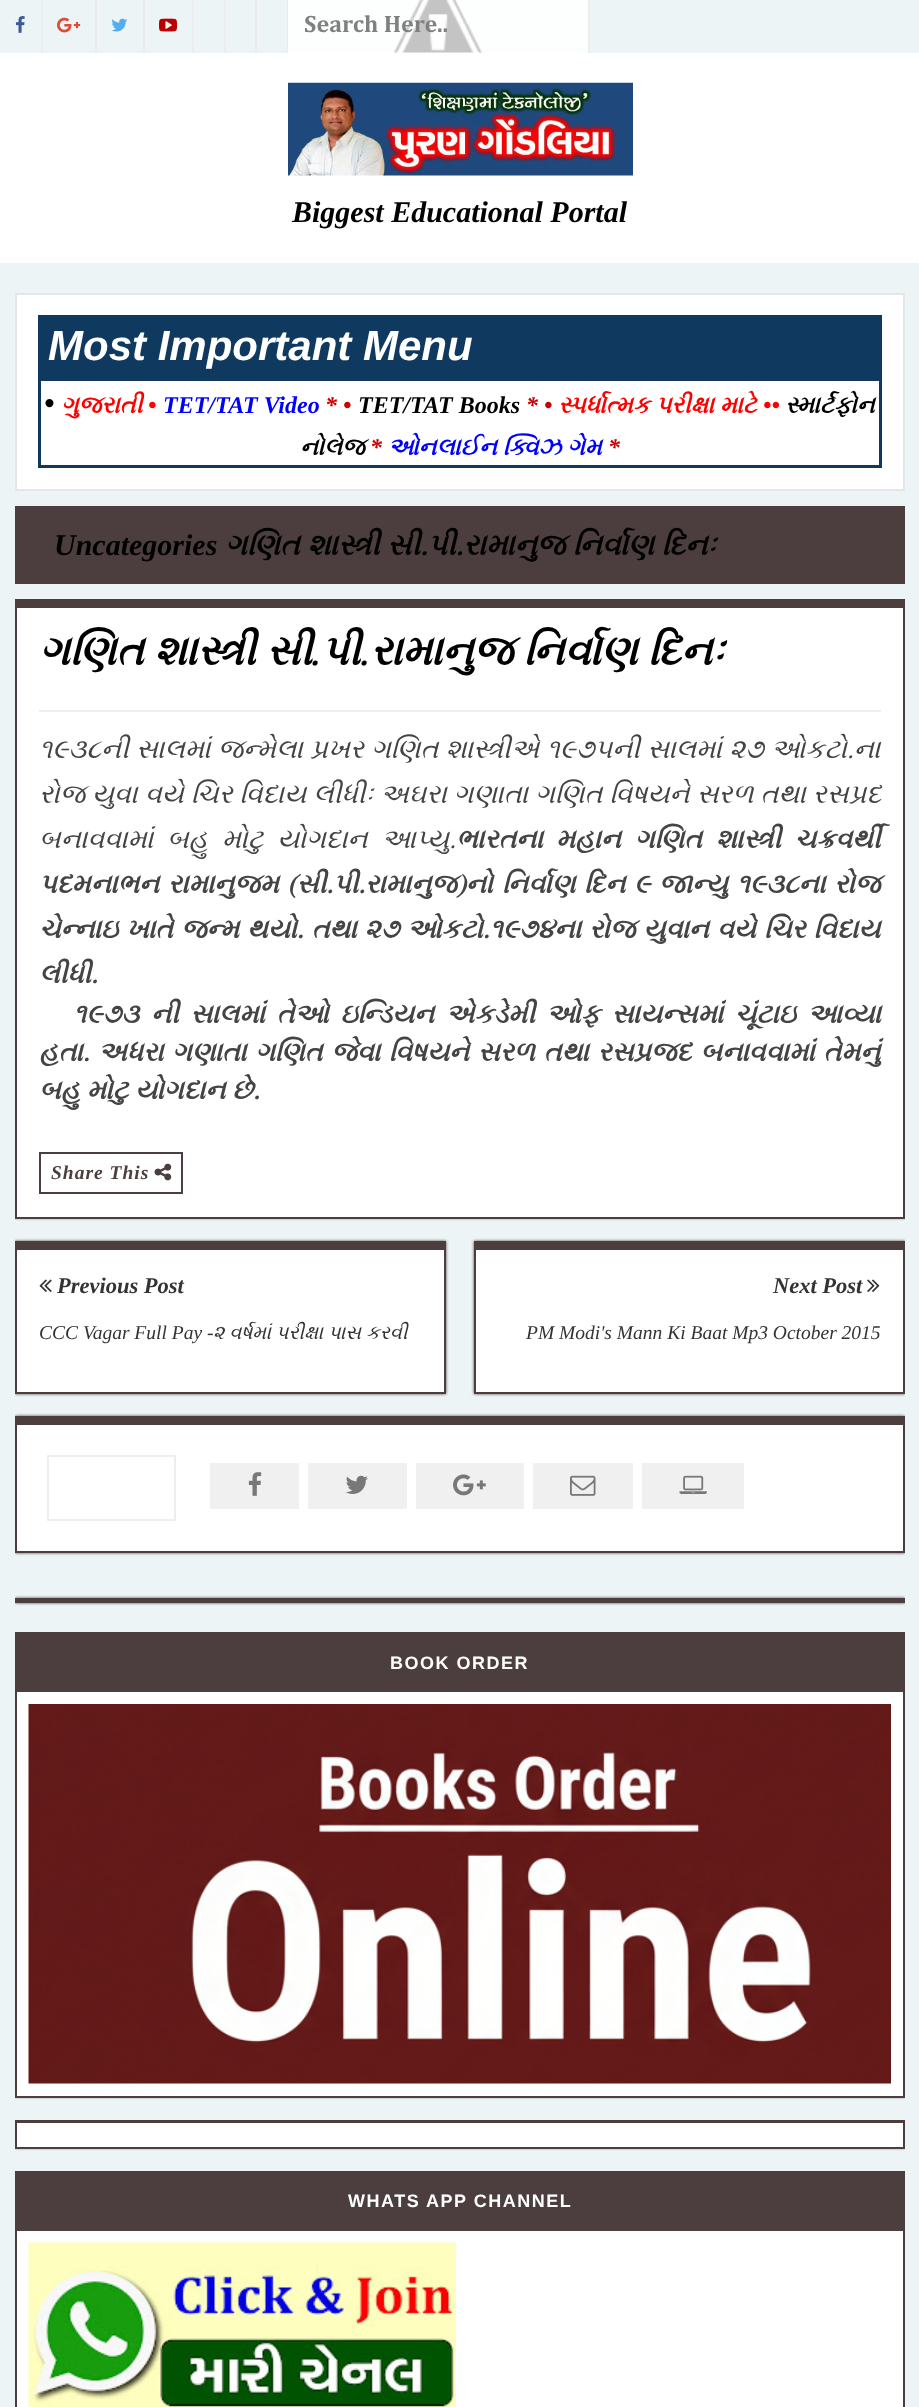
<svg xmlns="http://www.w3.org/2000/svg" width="919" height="2407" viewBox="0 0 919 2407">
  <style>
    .t1 { font: bold 24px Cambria; fill: #7f8080; }
    .t2 { font: italic bold 30px Liberation Serif; fill: #000; }
    .t3 { font: italic bold 42px Liberation Sans; fill: #fff; }
    .t4 { font: italic bold 24px FreeSerif; fill: #f00; }
    .t5 { font: italic bold 24px Liberation Serif; fill: #f00; }
    .t6 { font: italic bold 24px Liberation Serif; fill: #00f; }
    .t7 { font: italic bold 24px Liberation Serif; fill: #c00; }
    .t8 { font: italic bold 24px Liberation Serif; fill: #000; }
    .t9 { font: italic bold 24px FreeSerif; fill: #000; }
    .t10 { font: italic bold 24px FreeSerif; fill: #00f; }
    .t11 { font: italic bold 30px FreeSerif; fill: #000; }
    .t12 { font: italic bold 42px FreeSerif; fill: #000; }
    .t13 { font: italic bold 42px Philosopher; fill: #000; }
    .t14 { font: italic 27px FreeSerif; fill: #444; }
    .t15 { font: italic bold 27px FreeSerif; fill: #444; }
    .t16 { font: italic bold 19.5px Liberation Serif; letter-spacing: 1px; fill: #4c3e3e; }
    .t17 { font: italic bold 22.5px Liberation Serif; fill: #333; }
    .t18 { font: italic 19.5px Liberation Serif; fill: #333; }
    .t19 { font: italic 19.5px FreeSerif; fill: #333; }
    .t20 { font: bold 18px Liberation Sans; letter-spacing: 1.5px; fill: #fff; }
  </style>
  <defs>
    <clipPath id="clip1"><rect x="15" y="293" width="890" height="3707"/></clipPath>
    <clipPath id="clip2"><rect x="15" y="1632" width="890" height="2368"/></clipPath>
    <clipPath id="clip3"><rect x="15" y="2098" width="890" height="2"/></clipPath>
    <clipPath id="clip4"><path d="M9 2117H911V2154H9ZM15 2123H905V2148H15Z" clip-rule="evenodd"/></clipPath>
  </defs>
  <rect width="100%" height="100%" fill="#ecf4f6"/>
  <rect x="289" y="0" width="299" height="53" fill="#fdfefe"/>
  <rect x="41" y="0" width="2" height="53" fill="#ececec"/>
  <image x="15" y="16" width="10" height="17" href="images/1.png"/>
  <rect x="95" y="0" width="2" height="53" fill="#ececec"/>
  <image x="57" y="17" width="24" height="16" href="images/2.png"/>
  <rect x="143" y="0" width="2" height="53" fill="#ececec"/>
  <image x="111" y="18" width="17" height="14" href="images/3.png"/>
  <rect x="192" y="0" width="2" height="53" fill="#ececec"/>
  <image x="159" y="18" width="18" height="14" href="images/4.png"/>
  <rect x="224" y="0" width="2" height="53" fill="#ececec"/>
  <rect x="255" y="0" width="2" height="53" fill="#ececec"/>
  <rect x="287" y="0" width="1" height="53" fill="#ececec"/>
  <rect x="288" y="0" width="1" height="53" fill="#fdfdfd"/>
  <image x="393" y="0" width="90" height="53" href="images/5.png"/>
  <rect x="588" y="0" width="2" height="53" fill="#eceded"/>
  <text x="304" y="32" class="t1">Search Here..</text>
  <rect x="0" y="53" width="919" height="210" fill="#fff"/>
  <image x="288" y="82" width="345" height="94" href="images/6.png"/>
  <text x="292" y="222" class="t2">Biggest Educational Portal</text>
  <rect x="16" y="294" width="888" height="196" fill="#fff" stroke="#e6e6e6" stroke-width="2"/>
  <rect x="38" y="315" width="844" height="63" fill="#0f395e"/>
  <text x="48" y="360" class="t3">Most Important Menu</text>
  <rect x="39.5" y="379.5" width="841" height="87" fill="none" stroke="#0f395e" stroke-width="3"/>
  <text x="44" y="413" class="t2">•</text>
  <text x="61" y="413" class="t4">ગુજરાતી</text>
  <text x="148" y="413" class="t5">•</text>
  <text x="163" y="413" class="t6">TET/TAT Video</text>
  <text x="325" y="413" class="t7">* •</text>
  <text x="358" y="413" class="t8">TET/TAT Books</text>
  <text x="526" y="413" class="t7">* •</text>
  <text x="558" y="413" class="t4">સ્પર્ધાત્મક પરીક્ષા માટે</text>
  <text x="763" y="413" class="t5">••</text>
  <text x="785" y="413" class="t9">સ્માર્ટફોન</text>
  <text x="300" y="455" class="t9">નોલેજ</text>
  <text x="370" y="455" class="t7">*</text>
  <text x="388" y="455" class="t10">ઓનલાઈન ક્વિઝ ગેમ</text>
  <text x="608" y="455" class="t7">*</text>
  <rect x="15" y="506" width="890" height="78" fill="#4c3e3e"/>
  <text x="54" y="555" class="t2">Uncategories</text>
  <text x="225" y="555" class="t11">ગણિત શાસ્‍ત્રી સી.પી.રામાનુજ નિર્વાણ દિનઃ</text>
  <rect x="15" y="599" width="890" height="9" fill="#4c3e3e"/>
  <g clip-path="url(#clip1)">
    <rect x="15" y="608" width="890" height="610" fill="#4c3e3e" filter="blur(1.5px)"/>
  </g>
  <rect x="17" y="608" width="886" height="609" fill="#fff"/>
  <rect x="903" y="608" width="2" height="610" fill="#4c3e3e"/>
  <rect x="15" y="1217" width="890" height="2" fill="#4c3e3e"/>
  <rect x="15" y="608" width="2" height="610" fill="#4c3e3e"/>
  <text x="39" y="665" class="t12">ગણિત શાસ્‍ત્રી સી</text>
  <text x="312" y="665" class="t13">.</text>
  <text x="321" y="665" class="t12">પી</text>
  <text x="361" y="665" class="t13">.</text>
  <text x="370" y="665" class="t12">રામાનુજ નિર્વાણ દિનઃ</text>
  <rect x="39" y="710" width="842" height="2" fill="#eee"/>
  <text x="39" y="758" class="t14">૧૯૩૮ની</text>
  <text x="136" y="758" word-spacing="0.5" class="t14">સાલમાં જન્‍મેલા પ્રખર ગણિત શાસ્‍ત્રીએ ૧૯૭૫ની સાલમાં ૨૭ ઓકટો.ના</text>
  <text x="39" y="803" class="t14">રોજ યુવા</text>
  <text x="145" y="803" word-spacing="0.25" class="t14">વયે ચિર વિદાય લીધીઃ અઘરા ગણાતા ગણિત વિષયને સરળ તથા રસપ્રદ</text>
  <text x="39" y="848" word-spacing="7" class="t14">બનાવવામાં બહુ</text>
  <text x="222" y="848" word-spacing="7" class="t14">મોટુ યોગદાન આપ્‍યુ.</text>
  <text x="456" y="848" class="t15">ભારતના</text>
  <text x="556" y="848" word-spacing="7" class="t15">મહાન ગણિત શાસ્‍ત્રી ચક્રવર્થી</text>
  <text x="39" y="893" word-spacing="2" class="t15">પદમનાભન રામાનુજમ (સી.પી.રામાનુજ)નો</text>
  <text x="502" y="893" word-spacing="2" class="t15">નિર્વાણ દિન ૯ જાન્‍યુ ૧૯૩૮ના રોજ</text>
  <text x="39" y="938" word-spacing="1.25" class="t15">ચેન્‍નાઇ ખાતે જન્‍મ થયો. તથા ૨૭</text>
  <text x="407" y="938" word-spacing="1.25" class="t15">ઓકટો.૧૯૭૪ના રોજ યુવાન વયે ચિર વિદાય</text>
  <text x="39" y="983" class="t15">લીધી.</text>
  <text x="73" y="1023" class="t15">૧૯૭૩</text>
  <text x="151" y="1023" word-spacing="4.75" class="t15">ની સાલમાં તેઓ ઇન્‍ડિયન એકડેમી ઓફ સાયન્‍સમાં ચૂંટાઇ આવ્‍યા</text>
  <text x="39" y="1061" word-spacing="2" class="t15">હતા. અધરા</text>
  <text x="172" y="1061" word-spacing="2" class="t15">ગણાતા ગણિત જેવા વિષયને સરળ તથા રસપ્રજદ બનાવવામાં તેમનું</text>
  <text x="39" y="1099" class="t15">બહુ મોટુ યોગદાન છે.</text>
  <rect x="40" y="1153" width="142" height="40" fill="none" stroke="#4c3e3e" stroke-width="2"/>
  <text x="51" y="1179" class="t16">Share This</text>
  <image x="154" y="1163" width="18" height="18" href="images/7.png"/>
  <g clip-path="url(#clip1)">
    <rect x="15" y="1241" width="431" height="153" fill="#4c3e3e" filter="blur(1.5px)"/>
  </g>
  <rect x="17" y="1250" width="427" height="142" fill="#fff"/>
  <rect x="17" y="1241" width="427" height="9" fill="#4c3e3e"/>
  <rect x="444" y="1241" width="2" height="153" fill="#4c3e3e"/>
  <rect x="15" y="1392" width="431" height="2" fill="#4c3e3e"/>
  <rect x="15" y="1241" width="2" height="153" fill="#4c3e3e"/>
  <image x="39" y="1279" width="13" height="13" href="images/8.png"/>
  <text x="57" y="1293" class="t17">Previous Post</text>
  <text x="39" y="1339" class="t18">CCC Vagar Full Pay -</text>
  <text x="213" y="1339" class="t19">૨ વર્ષમાં પરીક્ષા પાસ કરવી</text>
  <g clip-path="url(#clip1)">
    <rect x="474" y="1241" width="431" height="153" fill="#4c3e3e" filter="blur(1.5px)"/>
  </g>
  <rect x="476" y="1250" width="427" height="142" fill="#fff"/>
  <rect x="476" y="1241" width="427" height="9" fill="#4c3e3e"/>
  <rect x="903" y="1241" width="2" height="153" fill="#4c3e3e"/>
  <rect x="474" y="1392" width="431" height="2" fill="#4c3e3e"/>
  <rect x="474" y="1241" width="2" height="153" fill="#4c3e3e"/>
  <text x="773" y="1293" class="t17">Next Post</text>
  <image x="867" y="1279" width="13" height="13" href="images/9.png"/>
  <text x="526" y="1339" class="t18">PM Modi's Mann Ki Baat Mp3 October 2015</text>
  <g clip-path="url(#clip1)">
    <rect x="15" y="1416" width="890" height="137" fill="#4c3e3e" filter="blur(1.5px)"/>
  </g>
  <rect x="17" y="1425" width="886" height="126" fill="#fff"/>
  <rect x="17" y="1416" width="886" height="9" fill="#4c3e3e"/>
  <rect x="903" y="1416" width="2" height="137" fill="#4c3e3e"/>
  <rect x="15" y="1551" width="890" height="2" fill="#4c3e3e"/>
  <rect x="15" y="1416" width="2" height="137" fill="#4c3e3e"/>
  <rect x="48" y="1456" width="127" height="64" fill="none" stroke="#eee" stroke-width="2"/>
  <rect x="210" y="1463" width="89" height="46" fill="#f0f0f0"/>
  <image x="248" y="1472" width="14" height="24" href="images/10.png"/>
  <rect x="308" y="1463" width="99" height="46" fill="#f0f0f0"/>
  <image x="346" y="1475" width="22" height="19" href="images/11.png"/>
  <rect x="416" y="1463" width="108" height="46" fill="#f0f0f0"/>
  <image x="453" y="1474" width="33" height="22" href="images/12.png"/>
  <rect x="533" y="1463" width="100" height="46" fill="#f0f0f0"/>
  <image x="570" y="1475" width="26" height="21" href="images/13.png"/>
  <rect x="642" y="1463" width="102" height="46" fill="#f0f0f0"/>
  <image x="679" y="1475" width="28" height="19" href="images/14.png"/>
  <g clip-path="url(#clip1)">
    <rect x="15" y="1598" width="890" height="5" fill="#4c3e3e" filter="blur(1.5px)"/>
  </g>
  <rect x="15" y="1598" width="890" height="3" fill="#4c3e3e"/>
  <rect x="903" y="1598" width="2" height="5" fill="#4c3e3e"/>
  <rect x="15" y="1601" width="890" height="2" fill="#4c3e3e"/>
  <rect x="17" y="1692" width="886" height="404" fill="#fff"/>
  <rect x="15" y="1632" width="890" height="3" fill="#4c3e3e"/>
  <g clip-path="url(#clip2)">
    <g clip-path="url(#clip3)">
      <rect x="15" y="1692" width="890" height="405" fill="#4c3e3e" filter="blur(1.5px)"/>
    </g>
  </g>
  <rect x="15" y="1635" width="890" height="57" fill="#4c3e3e"/>
  <text x="390" y="1669" class="t20">BOOK ORDER</text>
  <rect x="903" y="1692" width="2" height="405" fill="#4c3e3e"/>
  <rect x="15" y="2096" width="890" height="2" fill="#4c3e3e"/>
  <rect x="15" y="1692" width="2" height="405" fill="#4c3e3e"/>
  <image x="28" y="1704" width="863" height="380" href="images/15.png"/>
  <rect x="17" y="2123" width="886" height="24" fill="#fff"/>
  <rect x="15" y="2120" width="890" height="3" fill="#4c3e3e"/>
  <g clip-path="url(#clip2)">
    <g clip-path="url(#clip4)">
      <rect x="15" y="2123" width="890" height="25" fill="#4c3e3e" filter="blur(1.5px)"/>
    </g>
  </g>
  <rect x="903" y="2123" width="2" height="25" fill="#4c3e3e"/>
  <rect x="15" y="2147" width="890" height="2" fill="#4c3e3e"/>
  <rect x="15" y="2123" width="2" height="25" fill="#4c3e3e"/>
  <rect x="17" y="2231" width="886" height="176" fill="#fff"/>
  <rect x="15" y="2171" width="890" height="60" fill="#4c3e3e"/>
  <text x="348" y="2207" class="t20">WHATS APP CHANNEL</text>
  <rect x="903" y="2231" width="2" height="176" fill="#4c3e3e"/>
  <rect x="15" y="2231" width="2" height="176" fill="#4c3e3e"/>
  <image x="28" y="2242" width="428" height="165" href="images/16.png"/>
</svg>
